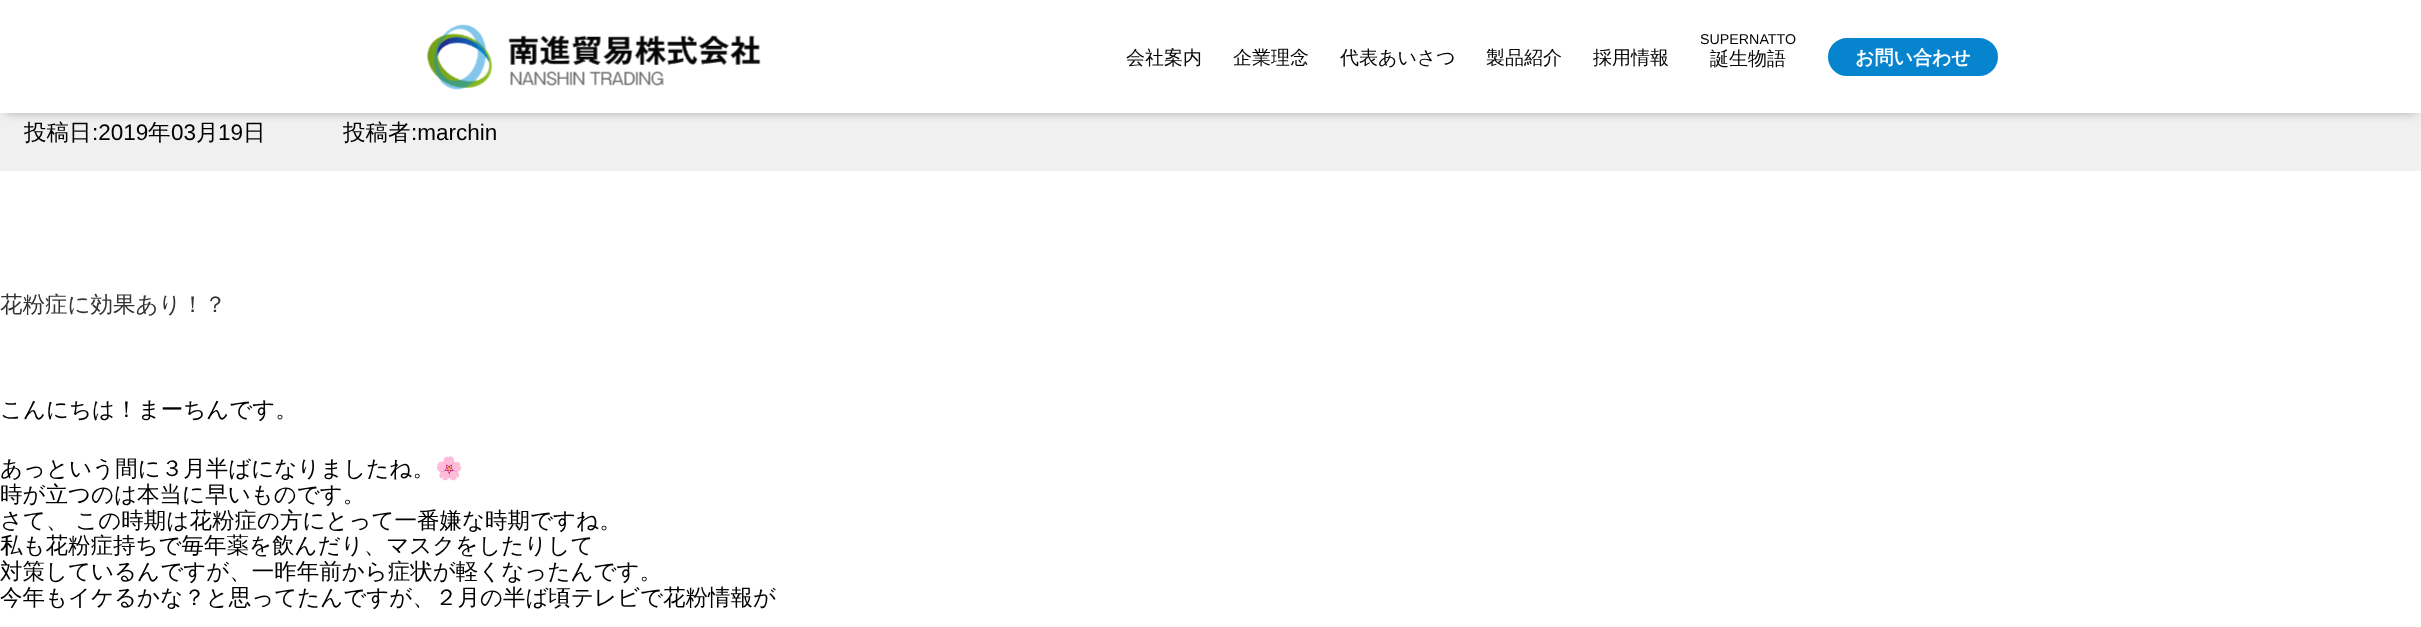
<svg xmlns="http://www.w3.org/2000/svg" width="2421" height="627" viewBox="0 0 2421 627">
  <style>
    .t1 { font: 500 19px WenQuanYi Zen Hei; fill: #060606; }
    .t2 { font: 14.25px Liberation Sans; fill: #060606; }
    .t3 { font: bold 19px WenQuanYi Zen Hei; fill: #fff; }
    .t4 { font: 500 22.5px WenQuanYi Zen Hei; fill: #000; }
    .t5 { font: 22.5px Liberation Sans; fill: #000; }
    .t6 { font: 500 22.5px WenQuanYi Zen Hei; fill: #333; }
    .t7 { font: 22.5px Noto Color Emoji; fill: #000; }
  </style>
  <defs>
    <clipPath id="clip1"><path d="M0 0H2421V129H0ZM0 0H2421V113H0Z" clip-rule="evenodd"/></clipPath>
  </defs>
  <rect width="100%" height="100%" fill="#fff"/>
  <rect x="0" y="96" width="2421" height="75" fill="#f0f0f0"/>
  <g clip-path="url(#clip1)">
    <rect x="5" y="10" width="2411" height="103" fill="#aaaaaaf7" filter="blur(5px)"/>
  </g>
  <rect x="0" y="96" width="2421" height="17" fill="#fffffff7"/>
  <image x="427" y="24" width="334" height="66" href="images/1.png"/>
  <text x="1126" y="64" class="t1">会社案内</text>
  <text x="1233" y="64" class="t1">企業理念</text>
  <text x="1340" y="64" class="t1">代表あいさつ</text>
  <text x="1486" y="64" class="t1">製品紹介</text>
  <text x="1593" y="64" class="t1">採用情報</text>
  <text x="1700" y="44" class="t2">SUPERNATTO</text>
  <text x="1710" y="65" class="t1">誕生物語</text>
  <rect x="1829.5" y="39.5" width="167" height="35" rx="17.5" fill="#0685ce" stroke="#0685ce" stroke-width="3"/>
  <text x="1855" y="64" class="t3">お問い合わせ</text>
  <text x="24" y="140" class="t4">投稿日</text>
  <text x="92" y="140" class="t5">:2019</text>
  <text x="148" y="140" class="t4">年</text>
  <text x="171" y="140" class="t5">03</text>
  <text x="196" y="140" class="t4">月</text>
  <text x="218" y="140" class="t5">19</text>
  <text x="243" y="140" class="t4">日</text>
  <text x="343" y="140" class="t4">投稿者</text>
  <text x="411" y="140" class="t5">:marchin</text>
  <text x="0" y="312" class="t6">花粉症に効果あり！？</text>
  <text x="0" y="417" class="t4">こんにちは！まーちんです。</text>
  <text x="0" y="476" class="t4">あっという間に３月半ばになりましたね。</text>
  <text x="435" y="476" class="t7">🌸</text>
  <text x="0" y="502" class="t4">時が立つのは本当に早いものです。</text>
  <text x="0" y="528" class="t4">さて、 この時期は花粉症の方にとって一番嫌な時期ですね。</text>
  <text x="0" y="553" class="t4">私も花粉症持ちで毎年薬を飲んだり、マスクをしたりして</text>
  <text x="0" y="579" class="t4">対策しているんですが、一昨年前から症状が軽くなったんです。</text>
  <text x="0" y="605" class="t4">今年もイケるかな？と思ってたんですが、２月の半ば頃テレビで花粉情報が</text>
</svg>
